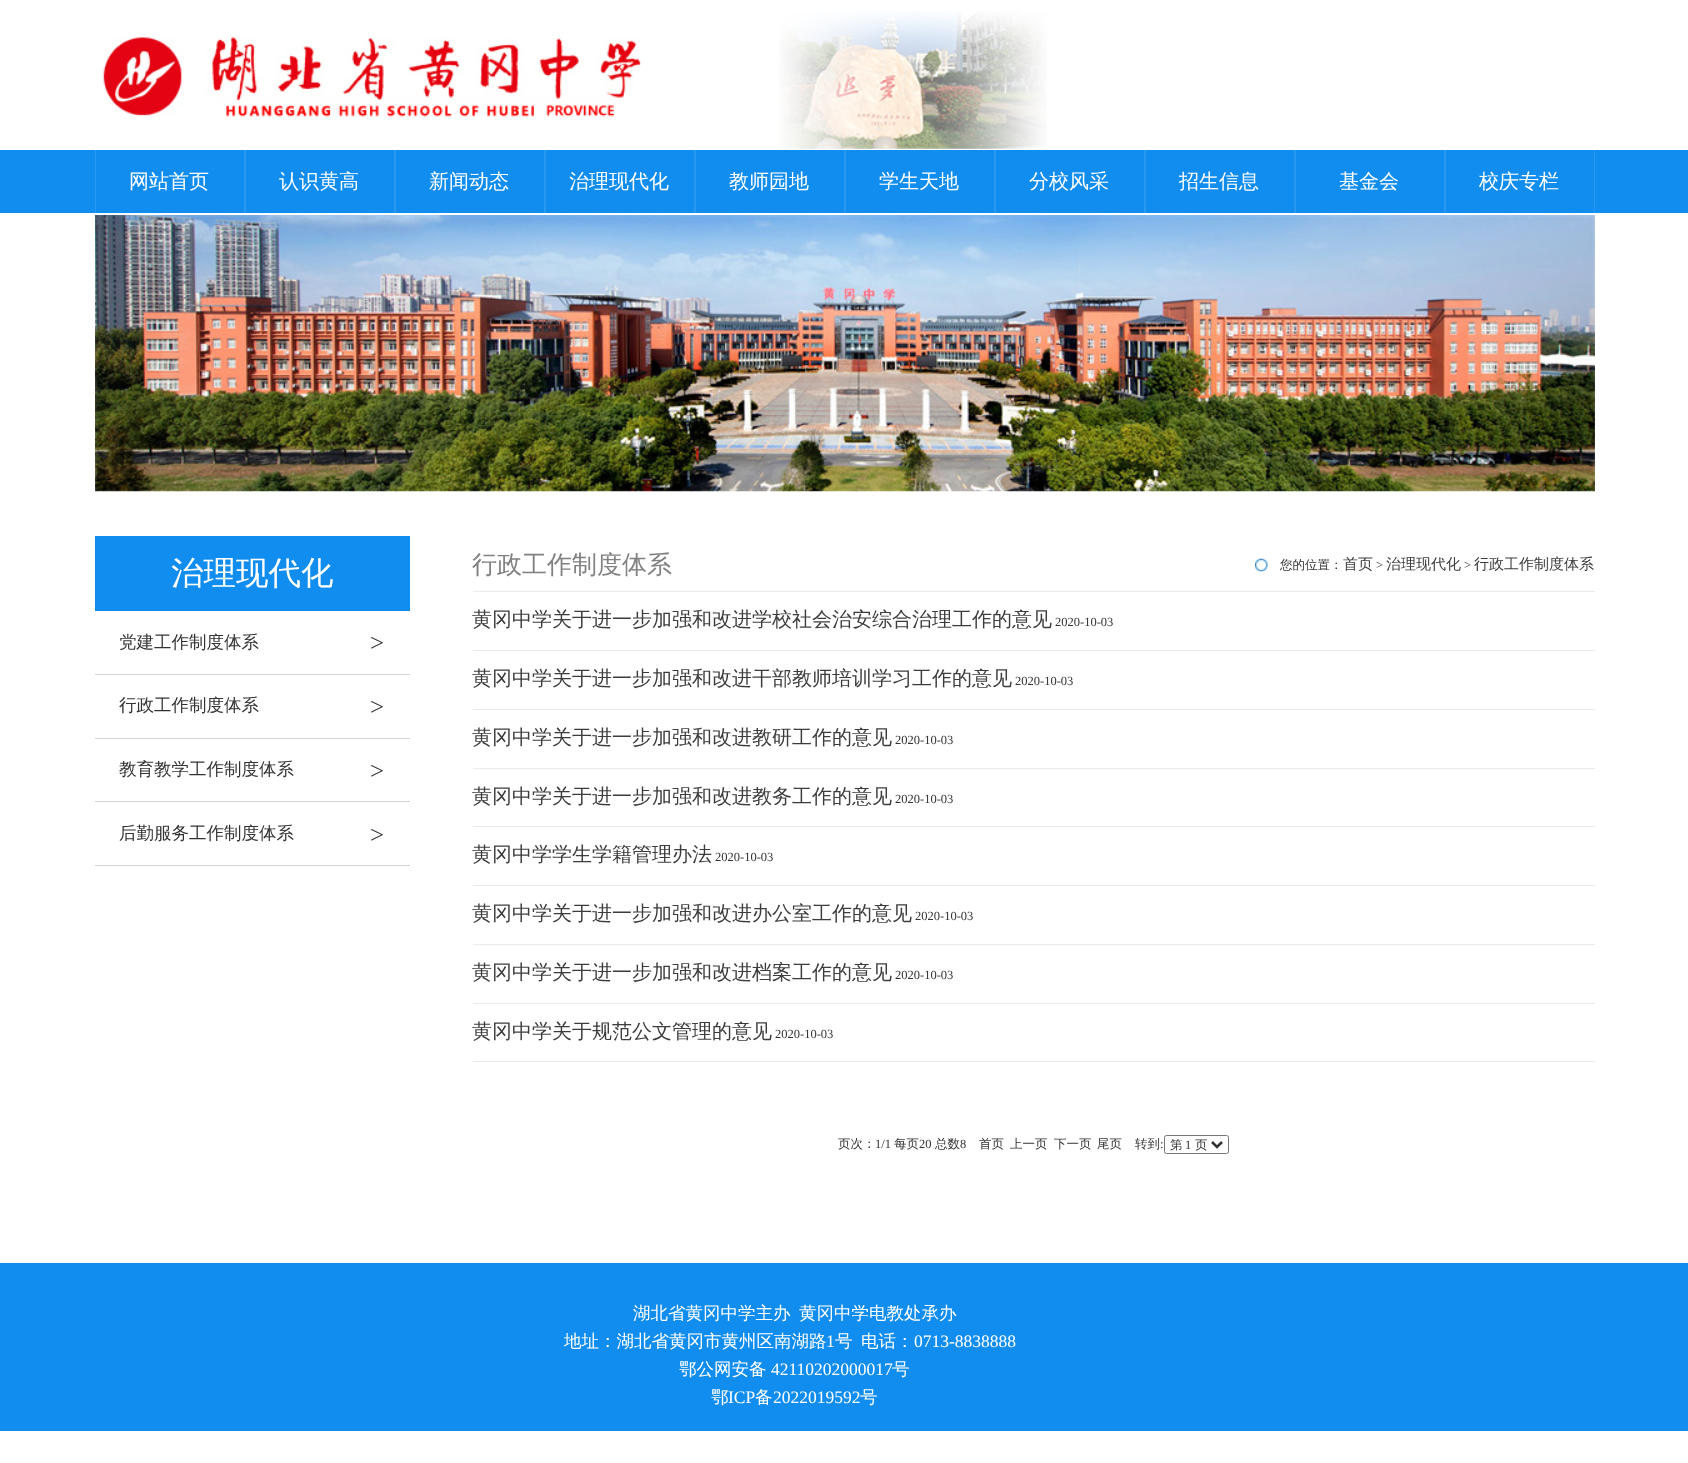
<svg xmlns="http://www.w3.org/2000/svg" width="1688" height="1463" viewBox="0 0 1688 1463">
  <style>
    .t1 { font: 500 20px WenQuanYi Zen Hei; fill: #fff; }
    .t2 { font: 500 32.5px WenQuanYi Zen Hei; fill: #fff; }
    .t3 { font: 500 17.5px WenQuanYi Zen Hei; fill: #333; }
    .t4 { font: 25px Liberation Serif; fill: #333; }
    .t5 { font: 500 25px WenQuanYi Zen Hei; fill: #818181; }
    .t6 { font: 500 12.5px WenQuanYi Zen Hei; fill: #333; }
    .t7 { font: 500 15px WenQuanYi Zen Hei; fill: #3c3c3c; }
    .t8 { font: 12.5px Liberation Serif; fill: #333; }
    .t9 { font: 500 20px WenQuanYi Zen Hei; fill: #3c3c3c; }
    .t10 { font: 500 17.5px WenQuanYi Zen Hei; fill: #fff; }
    .t11 { font: 17.5px Liberation Serif; fill: #fff; }
  </style>
  <rect width="100%" height="100%" fill="#fff"/>
  <image x="103" y="37" width="538" height="80" href="images/1.png"/>
  <image x="779" y="11" width="268" height="138" href="images/2.png"/>
  <rect x="0" y="150" width="1688" height="63" fill="#108dee"/>
  <rect x="244" y="150" width="2" height="63" fill="#2899f0"/>
  <rect x="95" y="150" width="1" height="63" fill="#2899f0"/>
  <text x="129" y="188" class="t1">网站首页</text>
  <rect x="394" y="150" width="2" height="63" fill="#2899f0"/>
  <text x="279" y="188" class="t1">认识黄高</text>
  <rect x="544" y="150" width="2" height="63" fill="#2899f0"/>
  <text x="429" y="188" class="t1">新闻动态</text>
  <rect x="694" y="150" width="2" height="63" fill="#2899f0"/>
  <text x="569" y="188" class="t1">治理现代化</text>
  <rect x="844" y="150" width="2" height="63" fill="#2899f0"/>
  <text x="729" y="188" class="t1">教师园地</text>
  <rect x="994" y="150" width="2" height="63" fill="#2899f0"/>
  <text x="879" y="188" class="t1">学生天地</text>
  <rect x="1144" y="150" width="2" height="63" fill="#2899f0"/>
  <text x="1029" y="188" class="t1">分校风采</text>
  <rect x="1294" y="150" width="2" height="63" fill="#2899f0"/>
  <text x="1179" y="188" class="t1">招生信息</text>
  <rect x="1444" y="150" width="2" height="63" fill="#2899f0"/>
  <text x="1339" y="188" class="t1">基金会</text>
  <rect x="1594" y="150" width="1" height="63" fill="#2899f0"/>
  <text x="1479" y="188" class="t1">校庆专栏</text>
  <image x="95" y="215" width="1500" height="277" href="images/3.png"/>
  <rect x="95" y="536" width="315" height="75" fill="#108dee"/>
  <text x="171" y="584" class="t2">治理现代化</text>
  <rect x="95" y="674" width="315" height="1" fill="#d3d3d3"/>
  <text x="119" y="648" class="t3">党建工作制度体系</text>
  <text x="370" y="651" class="t4">&gt;</text>
  <rect x="95" y="738" width="315" height="1" fill="#d3d3d3"/>
  <text x="119" y="711" class="t3">行政工作制度体系</text>
  <text x="370" y="715" class="t4">&gt;</text>
  <rect x="95" y="801" width="315" height="1" fill="#d3d3d3"/>
  <text x="119" y="775" class="t3">教育教学工作制度体系</text>
  <text x="370" y="779" class="t4">&gt;</text>
  <rect x="95" y="865" width="315" height="1" fill="#d3d3d3"/>
  <text x="119" y="839" class="t3">后勤服务工作制度体系</text>
  <text x="370" y="843" class="t4">&gt;</text>
  <rect x="473" y="591" width="1122" height="1" fill="#eaeaea"/>
  <text x="472" y="573" class="t5">行政工作制度体系</text>
  <image x="1255" y="558" width="13" height="14" href="images/4.png"/>
  <text x="1280" y="569" class="t6">您的位置：</text>
  <text x="1343" y="569" class="t7">首页</text>
  <text x="1376" y="569" class="t8">&gt;</text>
  <text x="1386" y="569" class="t7">治理现代化</text>
  <text x="1464" y="569" class="t8">&gt;</text>
  <text x="1474" y="569" class="t7">行政工作制度体系</text>
  <rect x="473" y="650" width="1122" height="1" fill="#eaeaea"/>
  <text x="472" y="626" class="t9">黄冈中学关于进一步加强和改进学校社会治安综合治理工作的意见</text>
  <text x="1055" y="626" class="t8">2020-10-03</text>
  <rect x="473" y="709" width="1122" height="1" fill="#eaeaea"/>
  <text x="472" y="685" class="t9">黄冈中学关于进一步加强和改进干部教师培训学习工作的意见</text>
  <text x="1015" y="685" class="t8">2020-10-03</text>
  <rect x="473" y="768" width="1122" height="1" fill="#eaeaea"/>
  <text x="472" y="744" class="t9">黄冈中学关于进一步加强和改进教研工作的意见</text>
  <text x="895" y="744" class="t8">2020-10-03</text>
  <rect x="473" y="826" width="1122" height="1" fill="#eaeaea"/>
  <text x="472" y="803" class="t9">黄冈中学关于进一步加强和改进教务工作的意见</text>
  <text x="895" y="803" class="t8">2020-10-03</text>
  <rect x="473" y="885" width="1122" height="1" fill="#eaeaea"/>
  <text x="472" y="861" class="t9">黄冈中学学生学籍管理办法</text>
  <text x="715" y="861" class="t8">2020-10-03</text>
  <rect x="473" y="944" width="1122" height="1" fill="#eaeaea"/>
  <text x="472" y="920" class="t9">黄冈中学关于进一步加强和改进办公室工作的意见</text>
  <text x="915" y="920" class="t8">2020-10-03</text>
  <rect x="473" y="1003" width="1122" height="1" fill="#eaeaea"/>
  <text x="472" y="979" class="t9">黄冈中学关于进一步加强和改进档案工作的意见</text>
  <text x="895" y="979" class="t8">2020-10-03</text>
  <rect x="473" y="1061" width="1122" height="1" fill="#eaeaea"/>
  <text x="472" y="1038" class="t9">黄冈中学关于规范公文管理的意见</text>
  <text x="775" y="1038" class="t8">2020-10-03</text>
  <text x="838" y="1148" class="t6">页次：</text>
  <text x="875" y="1148" class="t8">1/1</text>
  <text x="894" y="1148" class="t6">每页</text>
  <text x="919" y="1148" class="t8">20</text>
  <text x="935" y="1148" class="t6">总数</text>
  <text x="960" y="1148" class="t8">8</text>
  <text x="979" y="1148" class="t6">首页</text>
  <text x="1010" y="1148" class="t6">上一页</text>
  <text x="1054" y="1148" class="t6">下一页</text>
  <text x="1097" y="1148" class="t6">尾页</text>
  <text x="1135" y="1148" class="t6">转到</text>
  <text x="1160" y="1148" class="t8">:</text>
  <rect x="1164.5" y="1135.5" width="64" height="18" rx="2" fill="none" stroke="#767676"/>
  <path d="M1212 1142L1217 1147L1222 1142" fill="none" stroke="#333" stroke-width="2.5"/>
  <text x="1170" y="1149" class="t6">第</text>
  <text x="1185" y="1149" class="t8">1</text>
  <text x="1195" y="1149" class="t6">页</text>
  <rect x="0" y="1263" width="1688" height="168" fill="#108dee"/>
  <text x="633" y="1319" class="t10">湖北省黄冈中学主办</text>
  <text x="799" y="1319" class="t10">黄冈中学电教处承办</text>
  <text x="564" y="1347" class="t10">地址：湖北省黄冈市黄州区南湖路</text>
  <text x="826" y="1347" class="t11">1</text>
  <text x="835" y="1347" class="t10">号</text>
  <text x="861" y="1347" class="t10">电话：</text>
  <text x="914" y="1347" class="t11">0713-8838888</text>
  <text x="679" y="1375" class="t10">鄂公网安备</text>
  <text x="771" y="1375" class="t11">42110202000017</text>
  <text x="892" y="1375" class="t10">号</text>
  <text x="711" y="1403" class="t10">鄂</text>
  <text x="728" y="1403" class="t11">ICP</text>
  <text x="755" y="1403" class="t10">备</text>
  <text x="773" y="1403" class="t11">2022019592</text>
  <text x="860" y="1403" class="t10">号</text>
</svg>
